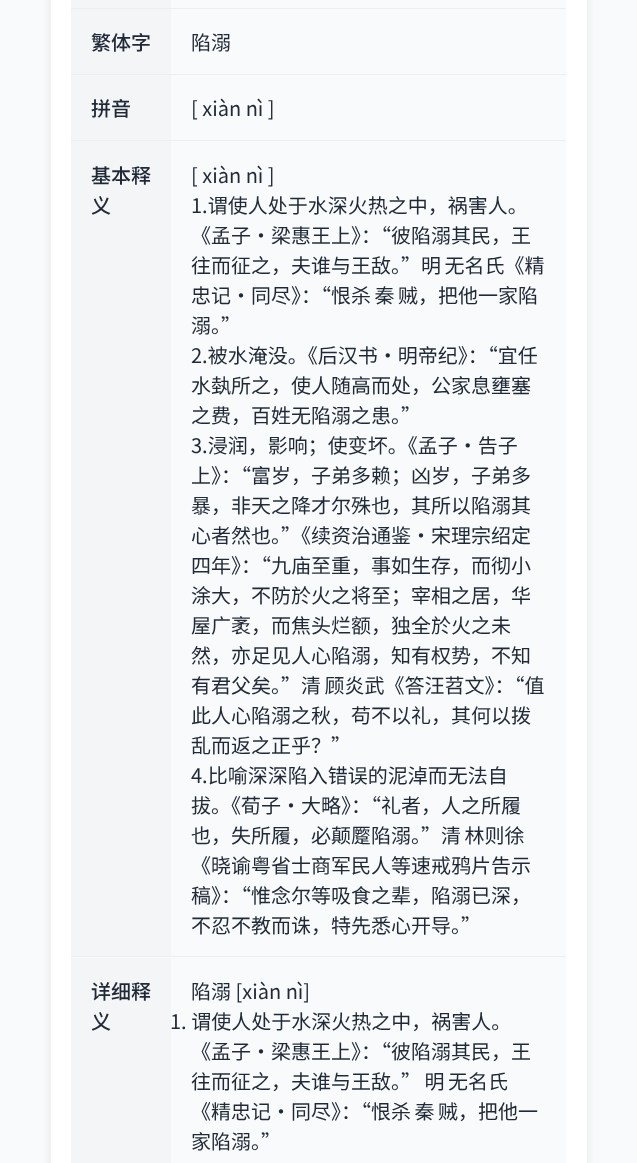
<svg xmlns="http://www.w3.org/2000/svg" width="637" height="1163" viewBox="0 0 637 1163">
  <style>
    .t1 { font: 500 20px Noto Sans SC; fill: #1f2937; }
    .t2 { font: 20px Noto Sans SC; fill: #1f2937; }
  </style>
  <rect width="100%" height="100%" fill="#f8fafc"/>
  <rect x="51" y="-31" width="535" height="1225" rx="19" fill="#0000001a" filter="blur(4px)"/>
  <rect x="50.5" y="-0.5" width="537" height="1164" fill="#fff" stroke="#f2f2f2"/>
  <rect x="71" y="0" width="495" height="1163" fill="#f9fafb"/>
  <rect x="71" y="8" width="495" height="1" fill="#edeeee"/>
  <rect x="71" y="0" width="100" height="8" fill="#f4f5f6"/>
  <rect x="71" y="74" width="495" height="1" fill="#edeeee"/>
  <rect x="71" y="9" width="100" height="65" fill="#f4f5f6"/>
  <text x="91" y="50" class="t1">繁体字</text>
  <text x="191" y="50" class="t2">陷溺</text>
  <rect x="71" y="140" width="495" height="1" fill="#edeeee"/>
  <rect x="71" y="75" width="100" height="65" fill="#f4f5f6"/>
  <text x="91" y="116" class="t1">拼音</text>
  <text x="191" y="116" class="t2">[ xiàn nì ]</text>
  <rect x="71" y="956" width="495" height="1" fill="#edeeee"/>
  <rect x="71" y="141" width="100" height="815" fill="#f4f5f6"/>
  <text x="91" y="183" class="t1">基本释</text>
  <text x="91" y="213" class="t1">义</text>
  <text x="191" y="183" class="t2">[ xiàn nì ]</text>
  <text x="191" y="213" class="t2">1.谓使人处于水深火热之中，祸害人。</text>
  <text x="191" y="243" class="t2">《孟子·梁惠王上》：“彼陷溺其民，王</text>
  <text x="191" y="273" word-spacing="-1" class="t2">往而征之，夫谁与王敌。”明 无名氏《精</text>
  <text x="191" y="303" word-spacing="-1" class="t2">忠记·同尽》：“恨杀 秦 贼，把他一家陷</text>
  <text x="191" y="333" class="t2">溺。”</text>
  <text x="191" y="363" class="t2">2.被水淹没。《后汉书·明帝纪》：“宜任</text>
  <text x="191" y="393" class="t2">水埶所之，使人随高而处，公家息壅塞</text>
  <text x="191" y="423" class="t2">之费，百姓无陷溺之患。”</text>
  <text x="191" y="453" class="t2">3.浸润，影响；使变坏。《孟子·告子</text>
  <text x="191" y="483" class="t2">上》：“富岁，子弟多赖；凶岁，子弟多</text>
  <text x="191" y="513" class="t2">暴，非天之降才尔殊也，其所以陷溺其</text>
  <text x="191" y="543" class="t2">心者然也。”《续资治通鉴·宋理宗绍定</text>
  <text x="191" y="573" class="t2">四年》：“九庙至重，事如生存，而彻小</text>
  <text x="191" y="603" class="t2">涂大，不防於火之将至；宰相之居，华</text>
  <text x="191" y="633" class="t2">屋广袤，而焦头烂额，独全於火之未</text>
  <text x="191" y="663" class="t2">然，亦足见人心陷溺，知有权势，不知</text>
  <text x="191" y="693" word-spacing="-1" class="t2">有君父矣。”清 顾炎武《答汪苕文》：“值</text>
  <text x="191" y="723" class="t2">此人心陷溺之秋，苟不以礼，其何以拨</text>
  <text x="191" y="753" class="t2">乱而返之正乎？”</text>
  <text x="191" y="783" class="t2">4.比喻深深陷入错误的泥淖而无法自</text>
  <text x="191" y="813" class="t2">拔。《荀子·大略》：“礼者，人之所履</text>
  <text x="191" y="843" word-spacing="-1" class="t2">也，失所履，必颠蹷陷溺。”清 林则徐</text>
  <text x="191" y="873" class="t2">《晓谕粤省士商军民人等速戒鸦片告示</text>
  <text x="191" y="903" class="t2">稿》：“惟念尔等吸食之辈，陷溺已深，</text>
  <text x="191" y="933" class="t2">不忍不教而诛，特先悉心开导。”</text>
  <rect x="71" y="958" width="100" height="205" fill="#f4f5f6"/>
  <text x="91" y="999" class="t1">详细释</text>
  <text x="91" y="1029" class="t1">义</text>
  <text x="191" y="999" class="t2">陷溺 [xiàn nì]</text>
  <text x="170" y="1029" class="t2">1. 谓使人处于水深火热之中，祸害人。</text>
  <text x="191" y="1059" class="t2">《孟子·梁惠王上》：“彼陷溺其民，王</text>
  <text x="191" y="1089" word-spacing="-1" class="t2">往而征之，夫谁与王敌。” 明 无名氏</text>
  <text x="191" y="1119" word-spacing="-1" class="t2">《精忠记·同尽》：“恨杀 秦 贼，把他一</text>
  <text x="191" y="1149" class="t2">家陷溺。”</text>
</svg>
